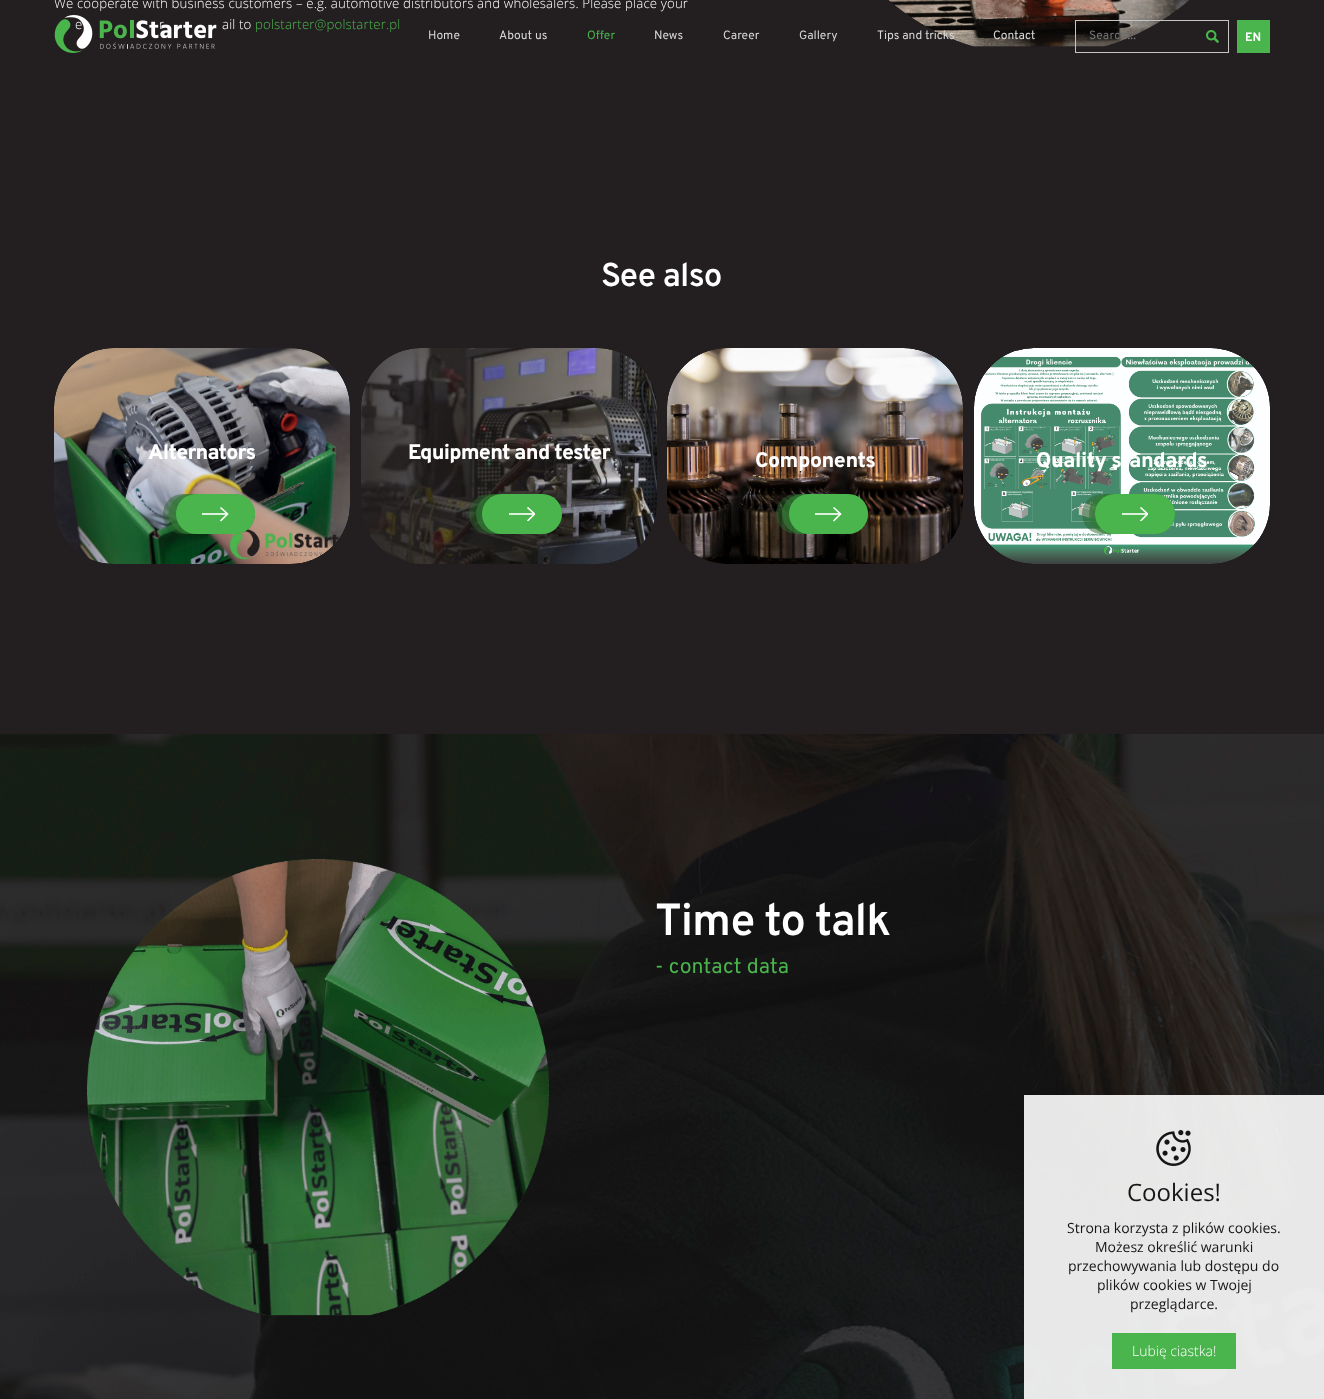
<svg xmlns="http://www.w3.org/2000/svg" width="1324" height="1399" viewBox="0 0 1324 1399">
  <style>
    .t1 { font: 300 13.25px Open Sans; letter-spacing: 0.13px; fill: #fff; }
    .t2 { font: 300 13.25px Open Sans; letter-spacing: 0.13px; fill: #4ab54d; }
    .t3 { font: 12px Overpass; fill: #d8d8d8; }
    .t4 { font: 12px Overpass; fill: #4ab54d; }
    .t5 { font: 12px Overpass; letter-spacing: 0.25px; fill: #757575; }
    .t6 { font: bold 12px Overpass; fill: #fff; }
    .t7 { font: 600 33px Overpass; letter-spacing: -0.7px; fill: #fff; }
    .t8 { font: 800 21.25px Overpass; letter-spacing: -0.7px; fill: #fff; }
    .t9 { font: 800 21.25px Overpass; letter-spacing: -0.4px; fill: #fff; }
    .t10 { font: 600 45px Overpass; letter-spacing: -1px; fill: #fff; }
    .t11 { font: 21.25px Overpass; letter-spacing: 0.13px; fill: #4ab54d; }
    .t12 { font: 24px Open Sans; fill: #161616; }
    .t13 { font: 14px Open Sans; fill: #161616; }
    .t14 { font: 300 14px Open Sans; fill: #fff; }
  </style>
  <defs>
    <clipPath id="clip1"><rect x="509" y="507" width="26" height="14"/></clipPath>
    <clipPath id="clip2"><rect x="1122" y="507" width="26" height="14"/></clipPath>
  </defs>
  <rect width="100%" height="100%" fill="#231f20"/>
  <text x="54" y="8" class="t1">We cooperate with business customers – e.g. automotive distributors and wholesalers. Please place your</text>
  <text x="75" y="29" class="t1">e</text>
  <text x="159" y="29" class="t1">r</text>
  <text x="222" y="29" class="t1">ail to</text>
  <text x="255" y="29" class="t2">polstarter@polstarter.pl</text>
  <image x="889" y="0" width="300" height="47" href="images/1.png"/>
  <image x="54" y="15" width="163" height="38" href="images/2.png"/>
  <text x="428" y="39" class="t3">Home</text>
  <text x="499" y="39" class="t3">About us</text>
  <text x="587" y="39" class="t4">Offer</text>
  <text x="654" y="39" class="t3">News</text>
  <text x="723" y="39" class="t3">Career</text>
  <text x="799" y="39" class="t3">Gallery</text>
  <text x="877" y="39" class="t3">Tips and tricks</text>
  <text x="993" y="39" class="t3">Contact</text>
  <rect x="1075.5" y="20.5" width="153" height="32" fill="none" stroke="#c5c5c5"/>
  <text x="1089" y="39" class="t5">Search...</text>
  <image x="1206" y="30" width="13" height="13" href="images/3.png"/>
  <rect x="1237" y="20" width="33" height="33" fill="#4ab54d"/>
  <text x="1245" y="41" class="t6">EN</text>
  <text x="601" y="286" class="t7">See also</text>
  <image x="54" y="348" width="296" height="216" href="images/4.png"/>
  <text x="148" y="459" class="t8">Alternators</text>
  <rect x="163" y="494" width="79" height="40" rx="20" fill="#29632b80"/>
  <rect x="169" y="494" width="86" height="40" rx="20" fill="#327b34b3"/>
  <rect x="176" y="494" width="79" height="40" rx="20" fill="#4ab54d"/>
  <rect x="202" y="513" width="26" height="2" fill="#dbf0db"/>
  <path d="M220.5 507.5L227.5 514L220.5 521" fill="none" stroke="#fff" stroke-width="1.6"/>
  <image x="361" y="348" width="296" height="216" href="images/5.png"/>
  <text x="408" y="459" class="t8">Equipment and tester</text>
  <rect x="469" y="494" width="79" height="40" rx="20" fill="#29632b80"/>
  <rect x="476" y="494" width="86" height="40" rx="20" fill="#327b34b3"/>
  <rect x="482" y="494" width="80" height="40" rx="20" fill="#4ab54d"/>
  <rect x="509" y="513" width="26" height="2" fill="#dbf0db"/>
  <g clip-path="url(#clip1)">
    <path d="M527.5 507.5L534.5 514L527.5 521" fill="none" stroke="#fff" stroke-width="1.6"/>
  </g>
  <image x="667" y="348" width="296" height="216" href="images/6.png"/>
  <text x="755" y="467" class="t9">Components</text>
  <rect x="776" y="494" width="79" height="40" rx="20" fill="#29632b80"/>
  <rect x="782" y="494" width="86" height="40" rx="20" fill="#327b34b3"/>
  <rect x="789" y="494" width="79" height="40" rx="20" fill="#4ab54d"/>
  <rect x="815" y="513" width="26" height="2" fill="#dbf0db"/>
  <path d="M833.5 507.5L840.5 514L833.5 521" fill="none" stroke="#fff" stroke-width="1.6"/>
  <image x="974" y="348" width="296" height="216" href="images/7.png"/>
  <text x="1036" y="467" class="t9">Quality standards</text>
  <rect x="1082" y="494" width="79" height="40" rx="20" fill="#29632b80"/>
  <rect x="1089" y="494" width="86" height="40" rx="20" fill="#327b34b3"/>
  <rect x="1095" y="494" width="80" height="40" rx="20" fill="#4ab54d"/>
  <rect x="1122" y="513" width="26" height="2" fill="#dbf0db"/>
  <g clip-path="url(#clip2)">
    <path d="M1140.5 507.5L1147.5 514L1140.5 521" fill="none" stroke="#fff" stroke-width="1.6"/>
  </g>
  <image x="0" y="734" width="1324" height="665" href="images/8.png"/>
  <image x="87" y="859" width="462" height="457" href="images/9.png"/>
  <text x="655" y="935" class="t10">Time to talk</text>
  <text x="655" y="973" class="t11">- contact data</text>
  <rect x="1024" y="1095" width="300" height="304" fill="#ffffffe6"/>
  <image x="1156" y="1130" width="35" height="36" href="images/10.png"/>
  <text x="1127" y="1201" class="t12">Cookies!</text>
  <text x="1067" y="1233" class="t13">Strona korzysta z plików cookies.</text>
  <text x="1095" y="1252" class="t13">Możesz określić warunki</text>
  <text x="1068" y="1271" class="t13">przechowywania lub dostępu do</text>
  <text x="1097" y="1290" class="t13">plików cookies w Twojej</text>
  <text x="1130" y="1309" class="t13">przeglądarce.</text>
  <rect x="1112" y="1333" width="124" height="36" fill="#4ab54d"/>
  <text x="1132" y="1356" class="t14">Lubię ciastka!</text>
</svg>
